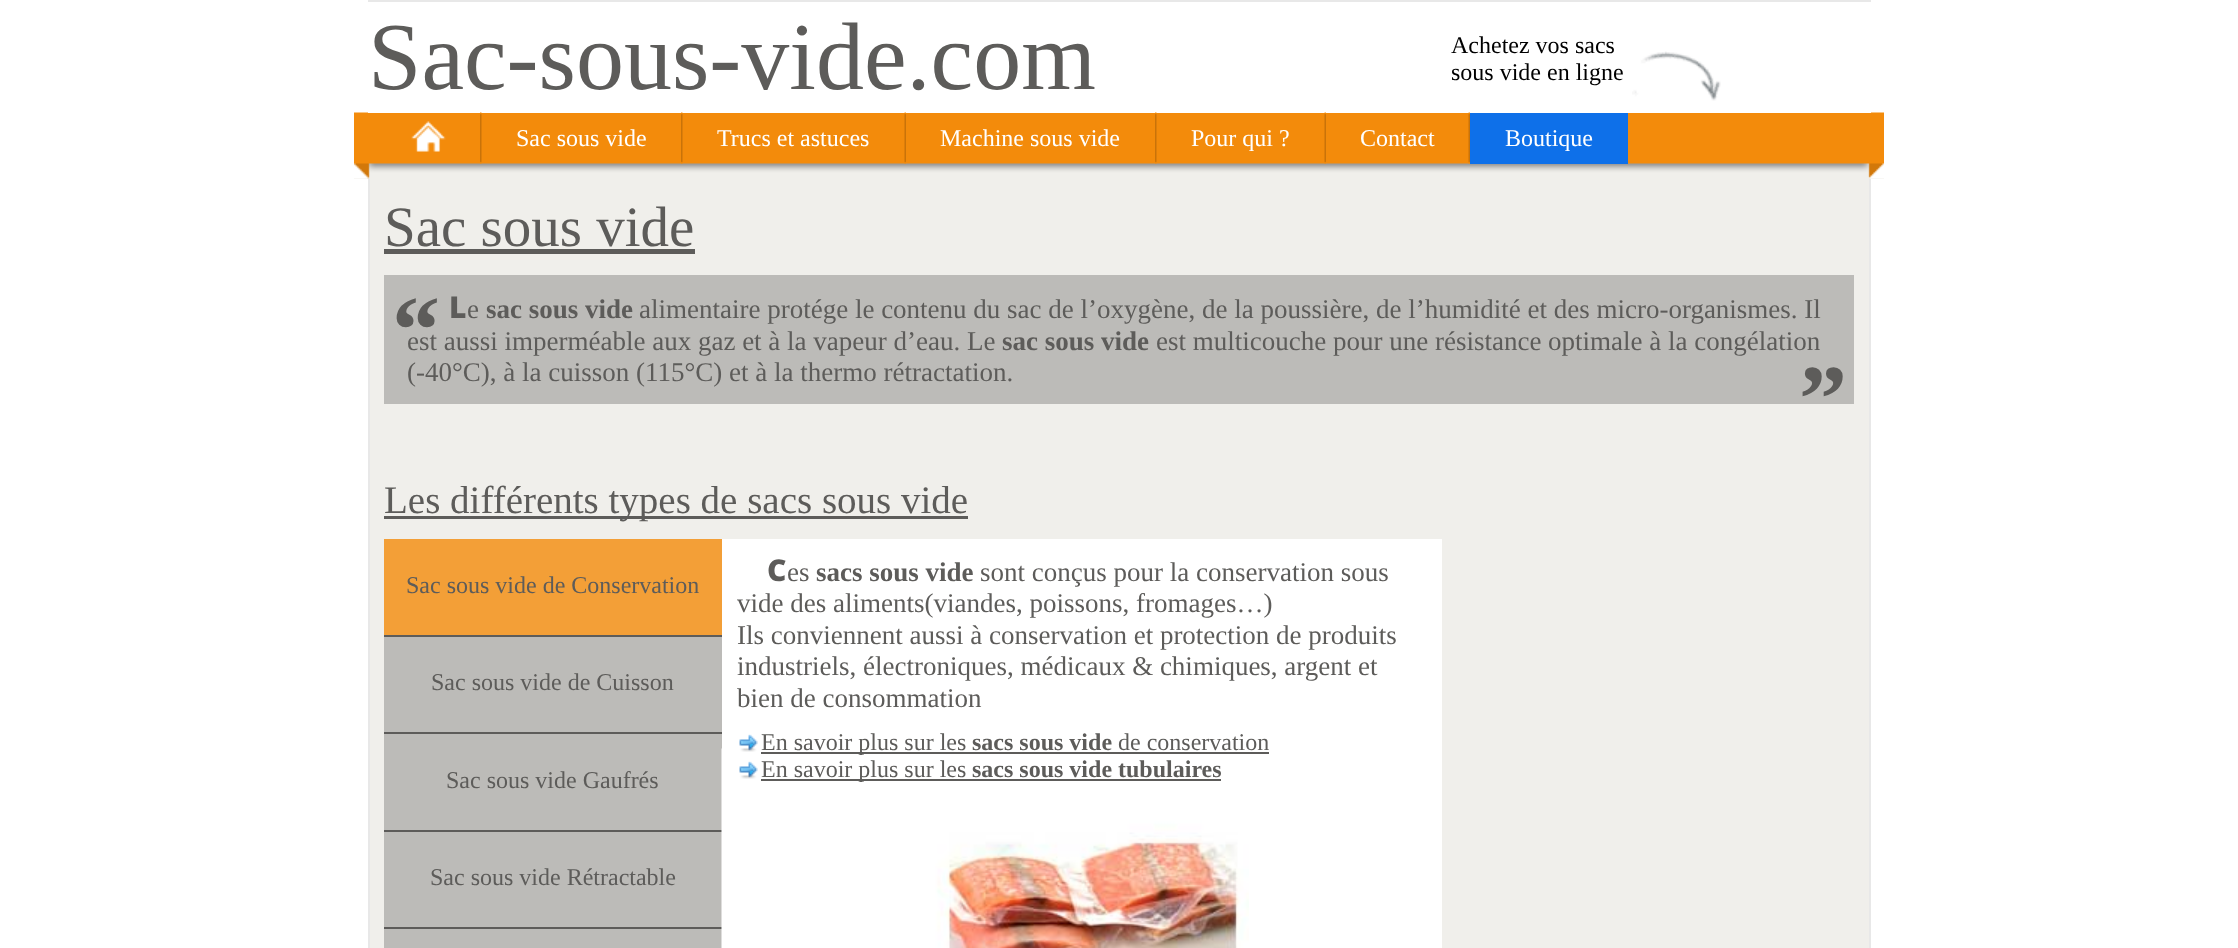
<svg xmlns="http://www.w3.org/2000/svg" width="2238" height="948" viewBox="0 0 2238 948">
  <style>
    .t1 { font: 96px Liberation Serif; fill: #5d5c5a; }
    .t2 { font: 24px Liberation Serif; fill: #000; }
    .t3 { font: 24px Liberation Serif; fill: #fff; }
    .t4 { font: 57px Liberation Serif; fill: #5d5c5a; }
    .t5 { font: 900 30px Noto Sans; fill: #5d5c5a; }
    .t6 { font: 27px Liberation Serif; fill: #5d5c5a; }
    .t7 { font: bold 27px Liberation Serif; fill: #5d5c5a; }
    .t8 { font: bold 96px Liberation Serif; fill: #5d5c5a; }
    .t9 { font: 39px Liberation Serif; fill: #5d5c5a; }
    .t10 { font: 24px Liberation Serif; fill: #5d5c5a; }
    .t11 { font: bold 24px Liberation Serif; fill: #5d5c5a; }
  </style>
  <rect width="100%" height="100%" fill="#fff"/>
  <rect x="370" y="179" width="1499" height="769" fill="#f0efeb"/>
  <rect x="369" y="1" width="1501" height="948" fill="none" stroke="#e8e8e8" stroke-width="2"/>
  <rect x="354" y="163" width="1530" height="16" fill="#f0efeb"/>
  <image x="354" y="112" width="1530" height="67" href="images/2.png"/>
  <rect x="368" y="2" width="1503" height="111" fill="#fff"/>
  <text x="368" y="89" class="t1">Sac-sous-vide.com</text>
  <image x="1632" y="51" width="89" height="50" href="images/1.png"/>
  <text x="1451" y="53" class="t2">Achetez vos sacs</text>
  <text x="1451" y="80" class="t2">sous vide en ligne</text>
  <image x="411" y="121" width="35" height="31" href="images/3.png"/>
  <image x="480" y="112" width="2" height="52" href="images/4.png"/>
  <text x="516" y="146" class="t3">Sac sous vide</text>
  <image x="681" y="112" width="2" height="52" href="images/4.png"/>
  <text x="717" y="146" class="t3">Trucs et astuces</text>
  <image x="904" y="112" width="2" height="52" href="images/5.png"/>
  <text x="940" y="146" class="t3">Machine sous vide</text>
  <image x="1155" y="112" width="2" height="52" href="images/4.png"/>
  <text x="1191" y="146" class="t3">Pour qui ?</text>
  <image x="1324" y="112" width="2" height="52" href="images/5.png"/>
  <text x="1360" y="146" class="t3">Contact</text>
  <image x="1468" y="112" width="2" height="52" href="images/5.png"/>
  <rect x="1470" y="113" width="158" height="51" fill="#0e70e9"/>
  <text x="1505" y="146" class="t3">Boutique</text>
  <text x="384" y="246" class="t4">Sac sous vide</text>
  <rect x="384" y="249" width="311" height="5" fill="#5d5c5a"/>
  <rect x="384" y="275" width="1470" height="129" fill="#bcbbb8"/>
  <text x="449" y="318" class="t5">L</text>
  <text x="467" y="318" class="t6">e</text>
  <text x="486" y="318" class="t7">sac sous vide</text>
  <text x="639" y="318" class="t6">alimentaire protége le contenu du sac de l’oxygène, de la poussière, de l’humidité et des micro-organismes. Il</text>
  <text x="407" y="350" class="t6">est aussi imperméable aux gaz et à la vapeur d’eau. Le</text>
  <text x="1002" y="350" class="t7">sac sous vide</text>
  <text x="1156" y="350" class="t6">est multicouche pour une résistance optimale à la congélation</text>
  <text x="407" y="381" class="t6">(-40°C), à la cuisson (115°C) et à la thermo rétractation.</text>
  <text x="392" y="362" class="t8">“</text>
  <text x="1799" y="431" class="t8">”</text>
  <rect x="384" y="516" width="584" height="3" fill="#5d5c5a"/>
  <text x="384" y="513" class="t9">Les différents types de sacs sous vide</text>
  <rect x="722" y="539" width="720" height="409" fill="#fff"/>
  <rect x="384" y="637" width="338" height="311" fill="#bcbbb8"/>
  <rect x="384" y="539" width="338" height="96" fill="#f39f37"/>
  <text x="406" y="593" class="t10">Sac sous vide de Conservation</text>
  <rect x="384" y="635" width="338" height="2" fill="#5d5c5a"/>
  <text x="431" y="690" class="t10">Sac sous vide de Cuisson</text>
  <rect x="384" y="732" width="338" height="2" fill="#5d5c5a"/>
  <text x="446" y="788" class="t10">Sac sous vide Gaufrés</text>
  <rect x="384" y="830" width="338" height="2" fill="#5d5c5a"/>
  <text x="430" y="885" class="t10">Sac sous vide Rétractable</text>
  <rect x="384" y="927" width="338" height="2" fill="#5d5c5a"/>
  <text x="767" y="581" class="t5">C</text>
  <text x="787" y="581" class="t6">es</text>
  <text x="816" y="581" class="t7">sacs sous vide</text>
  <text x="980" y="581" class="t6">sont conçus pour la conservation sous</text>
  <text x="737" y="612" class="t6">vide des aliments(viandes, poissons, fromages…)</text>
  <text x="737" y="644" class="t6">Ils conviennent aussi à conservation et protection de produits</text>
  <text x="737" y="675" class="t6">industriels, électroniques, médicaux &amp; chimiques, argent et</text>
  <text x="737" y="707" class="t6">bien de consommation</text>
  <image x="721" y="748" width="528" height="200" href="images/7.png"/>
  <image x="739" y="734" width="19" height="18" href="images/6.png"/>
  <rect x="761" y="752" width="508" height="2" fill="#5d5c5a"/>
  <text x="761" y="750" class="t10">En savoir plus sur les</text>
  <text x="972" y="750" class="t11">sacs sous vide</text>
  <text x="1118" y="750" class="t10">de conservation</text>
  <image x="739" y="761" width="19" height="18" href="images/6.png"/>
  <rect x="761" y="779" width="460" height="2" fill="#5d5c5a"/>
  <text x="761" y="777" class="t10">En savoir plus sur les</text>
  <text x="972" y="777" class="t11">sacs sous vide tubulaires</text>
</svg>
